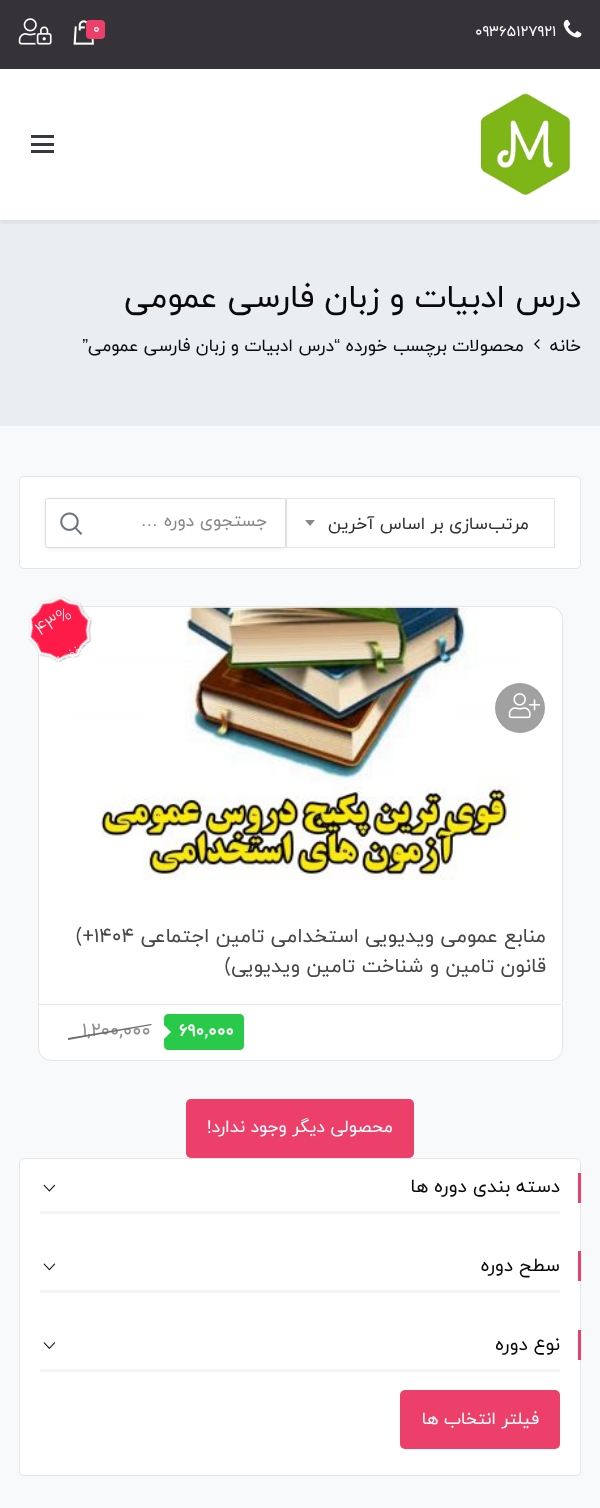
<svg xmlns="http://www.w3.org/2000/svg" width="600" height="1508" viewBox="0 0 600 1508">
  <style>
    .t1 { font: 15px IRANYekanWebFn; fill: #fff; }
    .t2 { font: 14px IRANYekanWebFn; fill: #fff; }
    .t3 { font: 32.5px IRANYekanWebFn; direction: rtl; fill: #0a0909; }
    .t4 { font: 17.5px IRANYekanWebFn; direction: rtl; fill: #0a0909; }
    .t5 { font: 17.5px Liberation Sans; direction: rtl; fill: #0a0909; }
    .t6 { font: 17.5px IRANYekanWebFn; direction: rtl; fill: #303030; }
    .t7 { font: 17.5px IRANYekanWebFn; direction: rtl; fill: #888; }
    .t8 { font: 17.5px Liberation Sans; direction: rtl; fill: #888; }
    .t9 { font: 300 18.75px IRANYekanWebFn; fill: #fff; }
    .t10 { font: 300 14px IRANYekanWebFn; direction: rtl; fill: #fff; }
    .t11 { font: 20px IRANYekanWebFn; direction: rtl; fill: #464749; }
    .t12 { font: 20px IRANYekanWebFn; fill: #464749; }
    .t13 { font: bold 17.5px IRANYekanWebFn; fill: #fff; }
    .t14 { font: 18.75px IRANYekanWebFn; fill: #8e8e8e; }
    .t15 { font: 17.5px IRANYekanWebFn; direction: rtl; fill: #fff; }
    .t16 { font: 18.75px IRANYekanWebFn; direction: rtl; fill: #0a0909; }
  </style>
  <defs>
    <clipPath id="clip1"><rect x="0" y="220" width="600" height="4"/></clipPath>
  </defs>
  <rect width="100%" height="100%" fill="#fff"/>
  <rect x="0" y="220" width="600" height="206" fill="#ebeef1"/>
  <g clip-path="url(#clip1)">
    <rect x="0" y="71" width="600" height="152" fill="#00000012" filter="blur(2.5px)"/>
  </g>
  <rect x="0" y="0" width="600" height="69" fill="#353338"/>
  <image x="563" y="19" width="19" height="19" href="images/1.png"/>
  <text x="475" y="36" class="t1">09365127921</text>
  <image x="73" y="20" width="21" height="25" href="images/2.png"/>
  <rect x="86" y="20" width="19" height="19" rx="4" fill="#ec406a"/>
  <text x="93" y="33" class="t2">0</text>
  <image x="18" y="18" width="34" height="27" href="images/3.png"/>
  <image x="480" y="93" width="90" height="102" href="images/4.png"/>
  <rect x="31" y="143" width="23" height="3" fill="#343a40"/>
  <rect x="31" y="135" width="23" height="3" fill="#343a40"/>
  <rect x="31" y="150" width="23" height="3" fill="#343a40"/>
  <text x="581" y="307" class="t3">درس ادبیات و زبان فارسی عمومی</text>
  <text x="581" y="351" class="t4">خانه</text>
  <image x="534" y="339" width="6" height="10" href="images/5.png"/>
  <text x="524" y="351" class="t4">محصولات برچسب خورده</text>
  <text x="340" y="351" class="t5">“</text>
  <text x="334" y="351" class="t4">درس ادبیات و زبان فارسی عمومی</text>
  <text x="88" y="351" class="t5">”</text>
  <rect x="0" y="426" width="600" height="1082" fill="#f8f9fa"/>
  <rect x="19.5" y="476.5" width="561" height="92" rx="4.5" fill="#fff" stroke="#e5e5e5"/>
  <rect x="286.5" y="498.5" width="268" height="49" fill="none" stroke="#e5e5e5"/>
  <text x="529" y="529" class="t6">مرتب‌سازی بر اساس آخرین</text>
  <path d="M305 520H315L310 526Z" fill="#888"/>
  <rect x="45" y="499" width="241" height="50" rx="2.5" fill="#0000000f" filter="blur(2px)"/>
  <rect x="45.5" y="498.5" width="240" height="49" rx="2" fill="#fff" stroke="#dcdcdc"/>
  <text x="267" y="526" class="t7">جستجوی دوره</text>
  <text x="158" y="526" class="t8">…</text>
  <image x="60" y="512" width="23" height="23" href="images/6.png"/>
  <rect x="38.5" y="606.5" width="524" height="454" rx="12.5" fill="#fff" stroke="#e5e5e5"/>
  <image x="39" y="607" width="481" height="274" href="images/7.png"/>
  <image x="28" y="596" width="64" height="67" href="images/8.png"/>
  <text x="40" y="636" transform="rotate(-30 40 636)" class="t9">43%</text>
  <text x="90" y="648" transform="rotate(-30 90 648)" class="t10">تخفیف</text>
  <circle cx="520" cy="708" r="25" fill="#a1a1a1"/>
  <image x="508" y="693" width="32" height="26" href="images/9.png"/>
  <text x="546" y="942" class="t11">منابع عمومی ویدیویی استخدامی تامین اجتماعی</text>
  <text x="76" y="942" class="t12">(+1404</text>
  <text x="546" y="972" class="t11">قانون تامین و شناخت تامین ویدیویی)</text>
  <rect x="39" y="1004" width="522" height="1" fill="#e5e5e5"/>
  <path d="M179 1014H240C242 1014 244 1016 244 1018V1046C244 1048 242 1050 240 1050H179Z" fill="#29ca4a"/>
  <text x="179" y="1036" class="t13">690,000</text>
  <path d="M168 1014H179V1050H168C166 1050 164 1048 164 1046V1018C164 1016 166 1014 168 1014Z" fill="#29ca4a"/>
  <path d="M162 1023L171 1032L162 1041L153 1032Z" fill="#fff"/>
  <text x="82" y="1036" class="t14">1,200,000</text>
  <path d="M68 1038L151 1024L152 1025L68 1040Z" fill="#6d6d6d"/>
  <rect x="186" y="1099" width="228" height="59" rx="5" fill="#ec406a"/>
  <text x="393" y="1132" class="t15">محصولی دیگر وجود ندارد!</text>
  <rect x="19.5" y="1158.5" width="561" height="317" rx="4.5" fill="#fff" stroke="#e5e5e5"/>
  <rect x="578" y="1173" width="3" height="30" fill="#ec406a"/>
  <text x="560" y="1192" class="t16">دسته بندی دوره ها</text>
  <image x="43" y="1184" width="13" height="8" href="images/10.png"/>
  <rect x="40" y="1211" width="520" height="3" fill="#f4f4f4"/>
  <rect x="578" y="1251" width="3" height="30" fill="#ec406a"/>
  <text x="560" y="1271" class="t16">سطح دوره</text>
  <image x="43" y="1263" width="13" height="8" href="images/11.png"/>
  <rect x="40" y="1290" width="520" height="3" fill="#f4f4f4"/>
  <rect x="578" y="1330" width="3" height="30" fill="#ec406a"/>
  <text x="560" y="1350" class="t16">نوع دوره</text>
  <image x="43" y="1342" width="13" height="7" href="images/12.png"/>
  <rect x="40" y="1369" width="520" height="3" fill="#f4f4f4"/>
  <rect x="400" y="1390" width="160" height="59" rx="5" fill="#ec406a"/>
  <text x="539" y="1424" class="t15">فیلتر انتخاب ها</text>
</svg>
